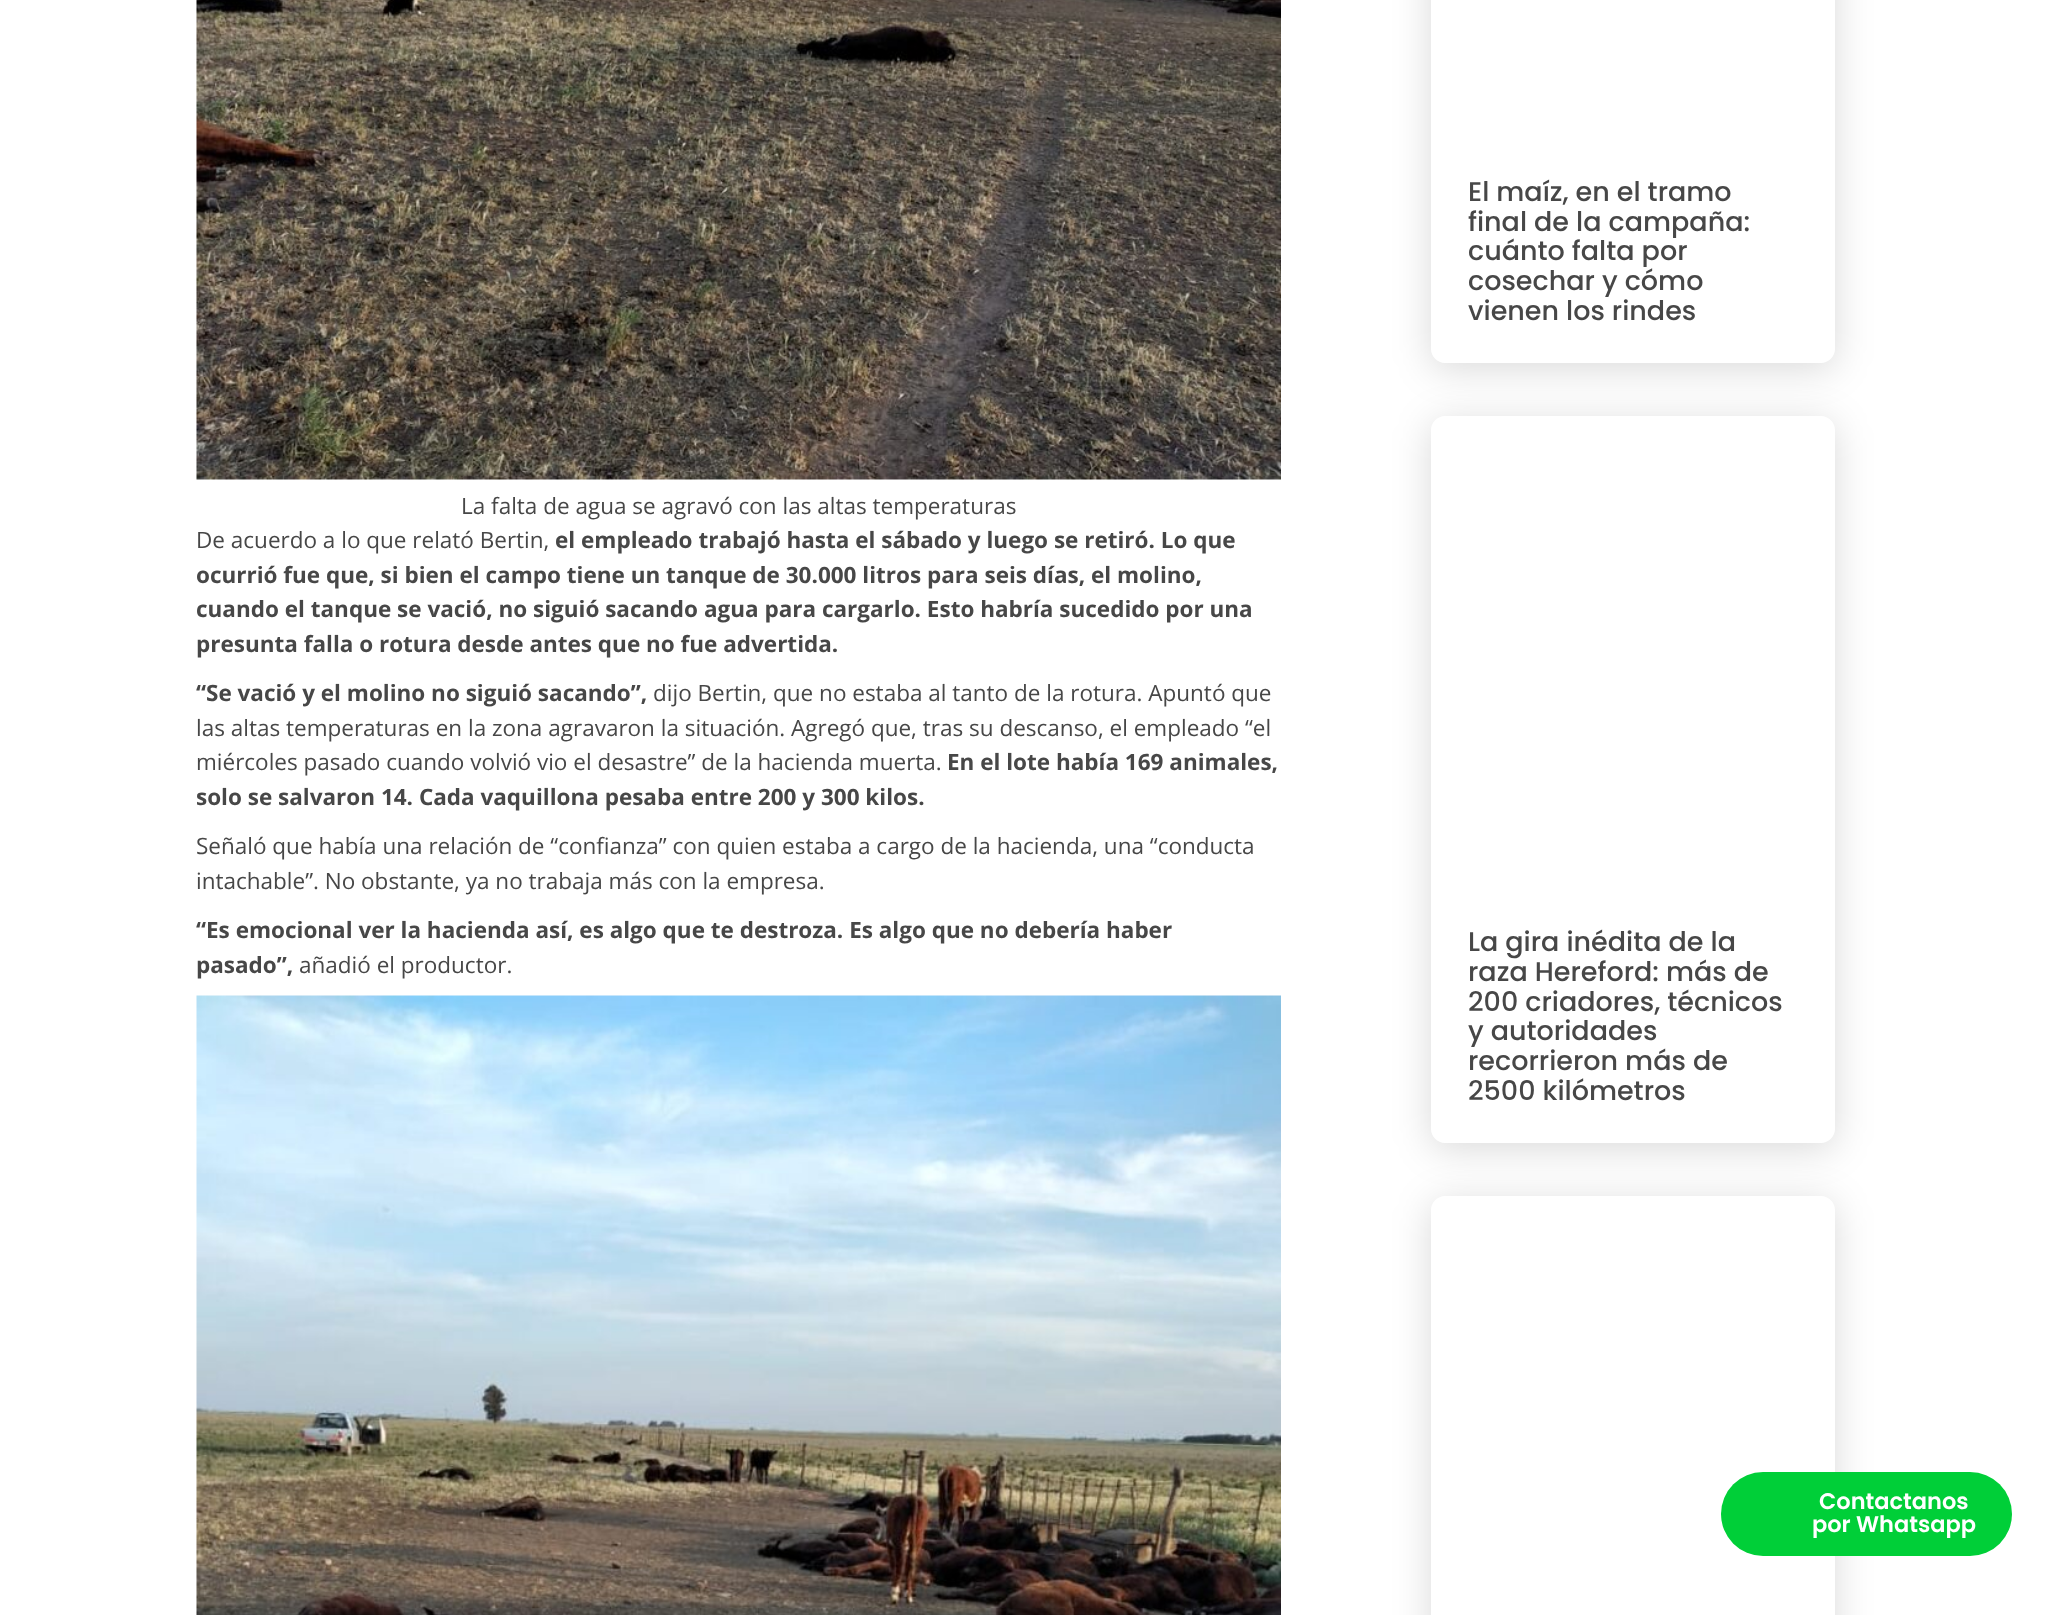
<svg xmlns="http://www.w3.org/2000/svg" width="2071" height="1615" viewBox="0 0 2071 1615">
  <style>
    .t1 { font: 22.5px Open Sans; fill: #474747; }
    .t2 { font: bold 22.5px Open Sans; fill: #474747; }
    .t3 { font: 500 27px Poppins; fill: #474747; }
    .t4 { font: 600 22.5px Poppins; fill: #fff; }
  </style>
  <defs>
    <clipPath id="clip1"><path d="M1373 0H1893V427H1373ZM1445-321H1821C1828.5-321 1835-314.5 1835-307V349C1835 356.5 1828.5 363 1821 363H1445C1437.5 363 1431 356.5 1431 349V-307C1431-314.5 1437.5-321 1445-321Z" clip-rule="evenodd"/></clipPath>
    <clipPath id="clip2"><path d="M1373 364H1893V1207H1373ZM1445 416H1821C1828.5 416 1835 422.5 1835 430V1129C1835 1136.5 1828.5 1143 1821 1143H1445C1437.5 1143 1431 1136.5 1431 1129V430C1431 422.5 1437.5 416 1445 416Z" clip-rule="evenodd"/></clipPath>
    <clipPath id="clip3"><path d="M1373 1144H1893V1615H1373ZM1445 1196H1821C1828.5 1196 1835 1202.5 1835 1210V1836C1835 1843.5 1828.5 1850 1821 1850H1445C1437.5 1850 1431 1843.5 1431 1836V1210C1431 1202.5 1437.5 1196 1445 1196Z" clip-rule="evenodd"/></clipPath>
  </defs>
  <rect width="100%" height="100%" fill="#fff"/>
  <image x="196" y="0" width="1085" height="480" href="images/1.png"/>
  <text x="461" y="514" class="t1">La falta de agua se agravó con las altas temperaturas</text>
  <text x="196" y="548" class="t1">De acuerdo a lo que relató Bertin,</text>
  <text x="555" y="548" class="t2">el empleado trabajó hasta el sábado y luego se retiró. Lo que</text>
  <text x="196" y="583" class="t2">ocurrió fue que, si bien el campo tiene un tanque de 30.000 litros para seis días, el molino,</text>
  <text x="196" y="617" class="t2">cuando el tanque se vació, no siguió sacando agua para cargarlo. Esto habría sucedido por una</text>
  <text x="196" y="652" class="t2">presunta falla o rotura desde antes que no fue advertida.</text>
  <text x="196" y="701" class="t2">“Se vació y el molino no siguió sacando”,</text>
  <text x="653" y="701" class="t1">dijo Bertin, que no estaba al tanto de la rotura. Apuntó que</text>
  <text x="196" y="736" class="t1">las altas temperaturas en la zona agravaron la situación. Agregó que, tras su descanso, el empleado “el</text>
  <text x="196" y="770" class="t1">miércoles pasado cuando volvió vio el desastre” de la hacienda muerta.</text>
  <text x="947" y="770" class="t2">En el lote había 169 animales,</text>
  <text x="196" y="805" class="t2">solo se salvaron 14. Cada vaquillona pesaba entre 200 y 300 kilos.</text>
  <text x="196" y="854" class="t1">Señaló que había una relación de “confianza” con quien estaba a cargo de la hacienda, una “conducta</text>
  <text x="196" y="889" class="t1">intachable”. No obstante, ya no trabaja más con la empresa.</text>
  <text x="196" y="938" class="t2">“Es emocional ver la hacienda así, es algo que te destroza. Es algo que no debería haber</text>
  <text x="196" y="973" class="t2">pasado”,</text>
  <text x="299" y="973" class="t1">añadió el productor.</text>
  <image x="196" y="995" width="1085" height="620" href="images/2.png"/>
  <g clip-path="url(#clip1)">
    <rect x="1431" y="-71" width="404" height="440" rx="14" fill="#00000026" filter="blur(19px)"/>
  </g>
  <text x="1468" y="201" class="t3">El maíz, en el tramo</text>
  <text x="1468" y="231" class="t3">final de la campaña:</text>
  <text x="1468" y="260" class="t3">cuánto falta por</text>
  <text x="1468" y="290" class="t3">cosechar y cómo</text>
  <text x="1468" y="320" class="t3">vienen los rindes</text>
  <g clip-path="url(#clip2)">
    <rect x="1431" y="422" width="404" height="727" rx="14" fill="#00000026" filter="blur(19px)"/>
  </g>
  <text x="1468" y="951" class="t3">La gira inédita de la</text>
  <text x="1468" y="981" class="t3">raza Hereford: más de</text>
  <text x="1468" y="1011" class="t3">200 criadores, técnicos</text>
  <text x="1468" y="1040" class="t3">y autoridades</text>
  <text x="1468" y="1070" class="t3">recorrieron más de</text>
  <text x="1468" y="1100" class="t3">2500 kilómetros</text>
  <g clip-path="url(#clip3)">
    <rect x="1431" y="1202" width="404" height="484" rx="14" fill="#00000026" filter="blur(19px)"/>
  </g>
  <rect x="1721" y="1472" width="291" height="84" rx="42" fill="#00cf38"/>
  <text x="1819" y="1509" class="t4">Contactanos</text>
  <text x="1812" y="1532" class="t4">por Whatsapp</text>
</svg>
